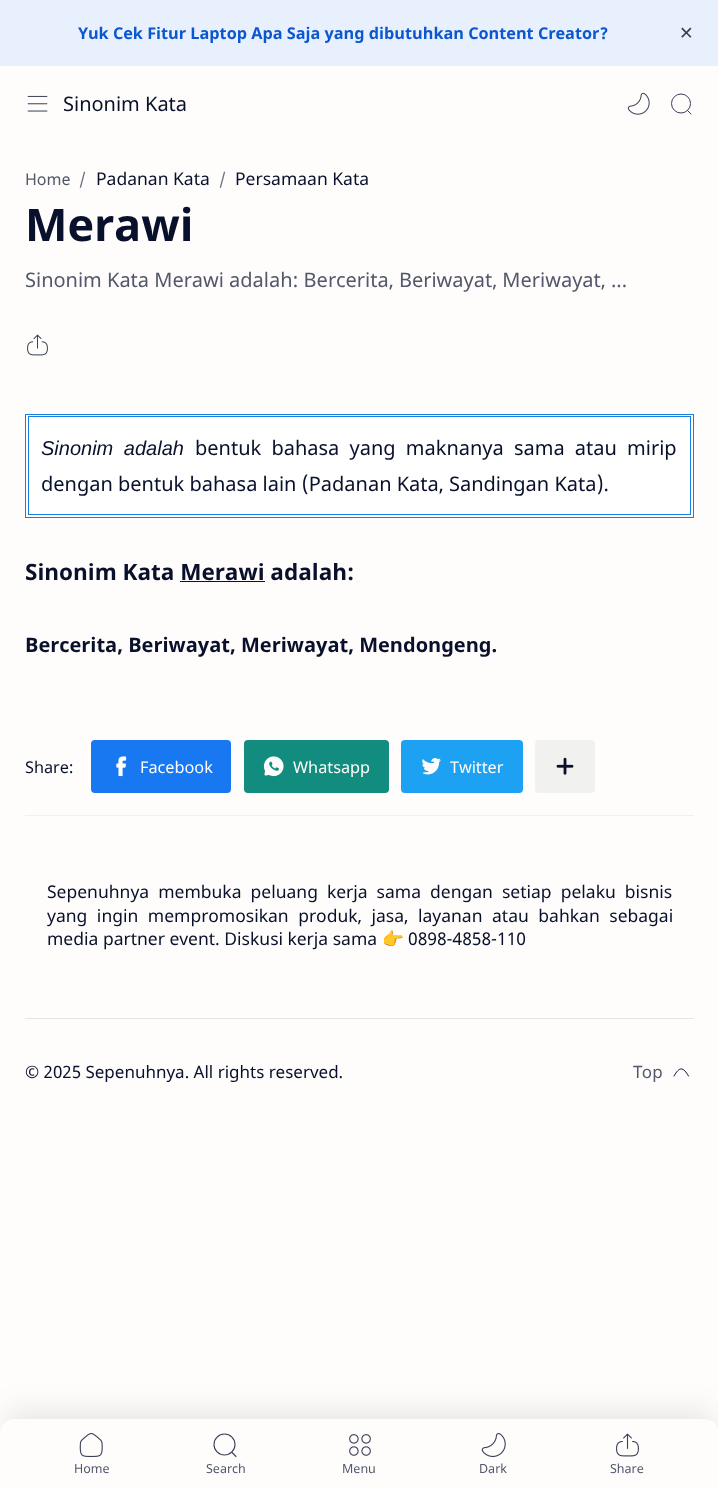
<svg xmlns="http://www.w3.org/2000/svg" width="718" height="1487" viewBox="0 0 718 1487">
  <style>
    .t1 { font: bold 16.25px Noto Sans; fill: #0b57cf; }
    .t2 { font: 17.5px DejaVu Sans; fill: #3c4043; }
    .t3 { font: 20px Noto Sans; fill: #08102b; }
    .t4 { font: 16px Noto Sans; fill: #52576a; }
    .t5 { font: 16px Noto Sans; fill: #6b6f7f; }
    .t6 { font: 17.5px Noto Sans; fill: #08102b; }
    .t7 { font: bold 45px Noto Sans; fill: #08102b; }
    .t8 { font: 20px Noto Sans; fill: #52576a; }
    .t9 { font: italic 20px Liberation Sans; fill: #08102b; }
    .t10 { font: bold 22.5px Noto Sans; fill: #08102b; }
    .t11 { font: bold 20px Noto Sans; fill: #08102b; }
    .t12 { font: 16.25px Noto Sans; fill: #08102b; }
    .t13 { font: 16.25px Noto Sans; fill: #fffdfc; }
    .t14 { font: 17.5px Noto Color Emoji; fill: #08102b; }
    .t15 { font: 17px Noto Sans; fill: #08102b; }
    .t16 { font: 17px Noto Sans; fill: #52576a; }
    .t17 { font: 12.5px Noto Sans; fill: #52576a; }
  </style>
  <rect width="100%" height="100%" fill="#fffdfc"/>
  <rect x="0" y="0" width="718" height="66" fill="#e8f0fe"/>
  <text x="78" y="39" class="t1">Yuk Cek Fitur Laptop Apa Saja yang dibutuhkan Content Creator?</text>
  <text x="679" y="39" class="t2">✕</text>
  <image x="27" y="95" width="21" height="17" href="images/1.png"/>
  <text x="63" y="111" class="t3">Sinonim Kata</text>
  <image x="627" y="92" width="23" height="23" href="images/2.png"/>
  <circle cx="681" cy="103.5" r="9.5" fill="none" stroke="#393f55"/>
  <path d="M687.5 110.5L691 114" fill="none" stroke="#393f55" stroke-linecap="round" stroke-linejoin="round"/>
  <text x="25" y="185" class="t4">Home</text>
  <text x="79" y="185" class="t5">/</text>
  <text x="96" y="185" class="t6">Padanan Kata</text>
  <text x="219" y="185" class="t5">/</text>
  <text x="235" y="185" class="t6">Persamaan Kata</text>
  <text x="25" y="241" class="t7">Merawi</text>
  <text x="25" y="287" class="t8">Sinonim Kata Merawi adalah: Bercerita, Beriwayat, Meriwayat, ...</text>
  <image x="27" y="334" width="21" height="22" href="images/3.png"/>
  <rect x="25.5" y="414.5" width="668" height="103" fill="#fff" stroke="#1780dd"/>
  <rect x="28.5" y="416.5" width="662" height="98" fill="none" stroke="#1780dd"/>
  <text x="41" y="455" word-spacing="5" class="t9">Sinonim adalah</text>
  <text x="195" y="455" word-spacing="5" class="t3">bentuk bahasa yang maknanya sama atau mirip</text>
  <text x="41" y="491" class="t3">dengan bentuk bahasa lain (Padanan Kata, Sandingan Kata).</text>
  <text x="25" y="580" class="t10">Sinonim Kata Merawi adalah:</text>
  <rect x="180" y="581" width="85" height="1" fill="#08102b"/>
  <text x="25" y="652" class="t11">Bercerita, Beriwayat, Meriwayat, Mendongeng.</text>
  <rect x="25" y="815" width="669" height="1" fill="#f2f0ef"/>
  <text x="25" y="773" class="t12">Share:</text>
  <rect x="91" y="740" width="140" height="53" rx="4" fill="#1778f2"/>
  <image x="116" y="756" width="11" height="21" href="images/4.png"/>
  <text x="140" y="773" class="t13">Facebook</text>
  <rect x="244" y="740" width="145" height="53" rx="4" fill="#128c7e"/>
  <image x="263" y="756" width="21" height="21" href="images/5.png"/>
  <text x="293" y="773" class="t13">Whatsapp</text>
  <rect x="401" y="740" width="122" height="53" rx="4" fill="#1da1f2"/>
  <image x="422" y="758" width="19" height="17" href="images/6.png"/>
  <text x="450" y="773" class="t13">Twitter</text>
  <rect x="535" y="740" width="60" height="53" rx="4" fill="#f1f1f0"/>
  <image x="556" y="757" width="18" height="18" href="images/7.png"/>
  <text x="47" y="898" word-spacing="4.5" class="t6">Sepenuhnya membuka peluang kerja sama dengan setiap pelaku bisnis</text>
  <text x="47" y="922" word-spacing="5" class="t6">yang ingin mempromosikan produk, jasa, layanan atau bahkan sebagai</text>
  <text x="47" y="945" class="t6">media partner event. Diskusi kerja sama</text>
  <text x="382" y="945" class="t14">👉</text>
  <text x="408" y="945" class="t6">0898-4858-110</text>
  <rect x="25" y="1018" width="669" height="1" fill="#e6e6e6"/>
  <text x="25" y="1078" class="t15">© 2025 Sepenuhnya. All rights reserved.</text>
  <text x="633" y="1078" class="t16">Top</text>
  <path d="M674 1076C679.5 1066.5 683 1066.5 688.5 1076" fill="none" stroke="#08102b" stroke-linecap="round" stroke-linejoin="round"/>
  <rect x="6" y="1413" width="707" height="56" rx="9" fill="#0000001a" filter="blur(15.5px)"/>
  <path d="M15 1419H704C712.5 1419 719 1425.5 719 1434V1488H0V1434C0 1425.5 6.5 1419 15 1419Z" fill="#fffdfc"/>
  <image x="79" y="1433" width="24" height="24" href="images/8.png"/>
  <text x="74" y="1473" class="t17">Home</text>
  <circle cx="224.5" cy="1444.5" r="10.5" fill="none" stroke="#393f55" stroke-width="1.1"/>
  <path d="M232 1452.5L236 1456.5" fill="none" stroke="#393f55" stroke-width="1.1" stroke-linecap="round" stroke-linejoin="round"/>
  <text x="206" y="1473" class="t17">Search</text>
  <image x="349" y="1434" width="22" height="22" href="images/9.png"/>
  <text x="342" y="1473" class="t17">Menu</text>
  <image x="481" y="1433" width="25" height="24" href="images/10.png"/>
  <text x="479" y="1473" class="t17">Dark</text>
  <image x="616" y="1433" width="23" height="24" href="images/11.png"/>
  <text x="610" y="1473" class="t17">Share</text>
</svg>
